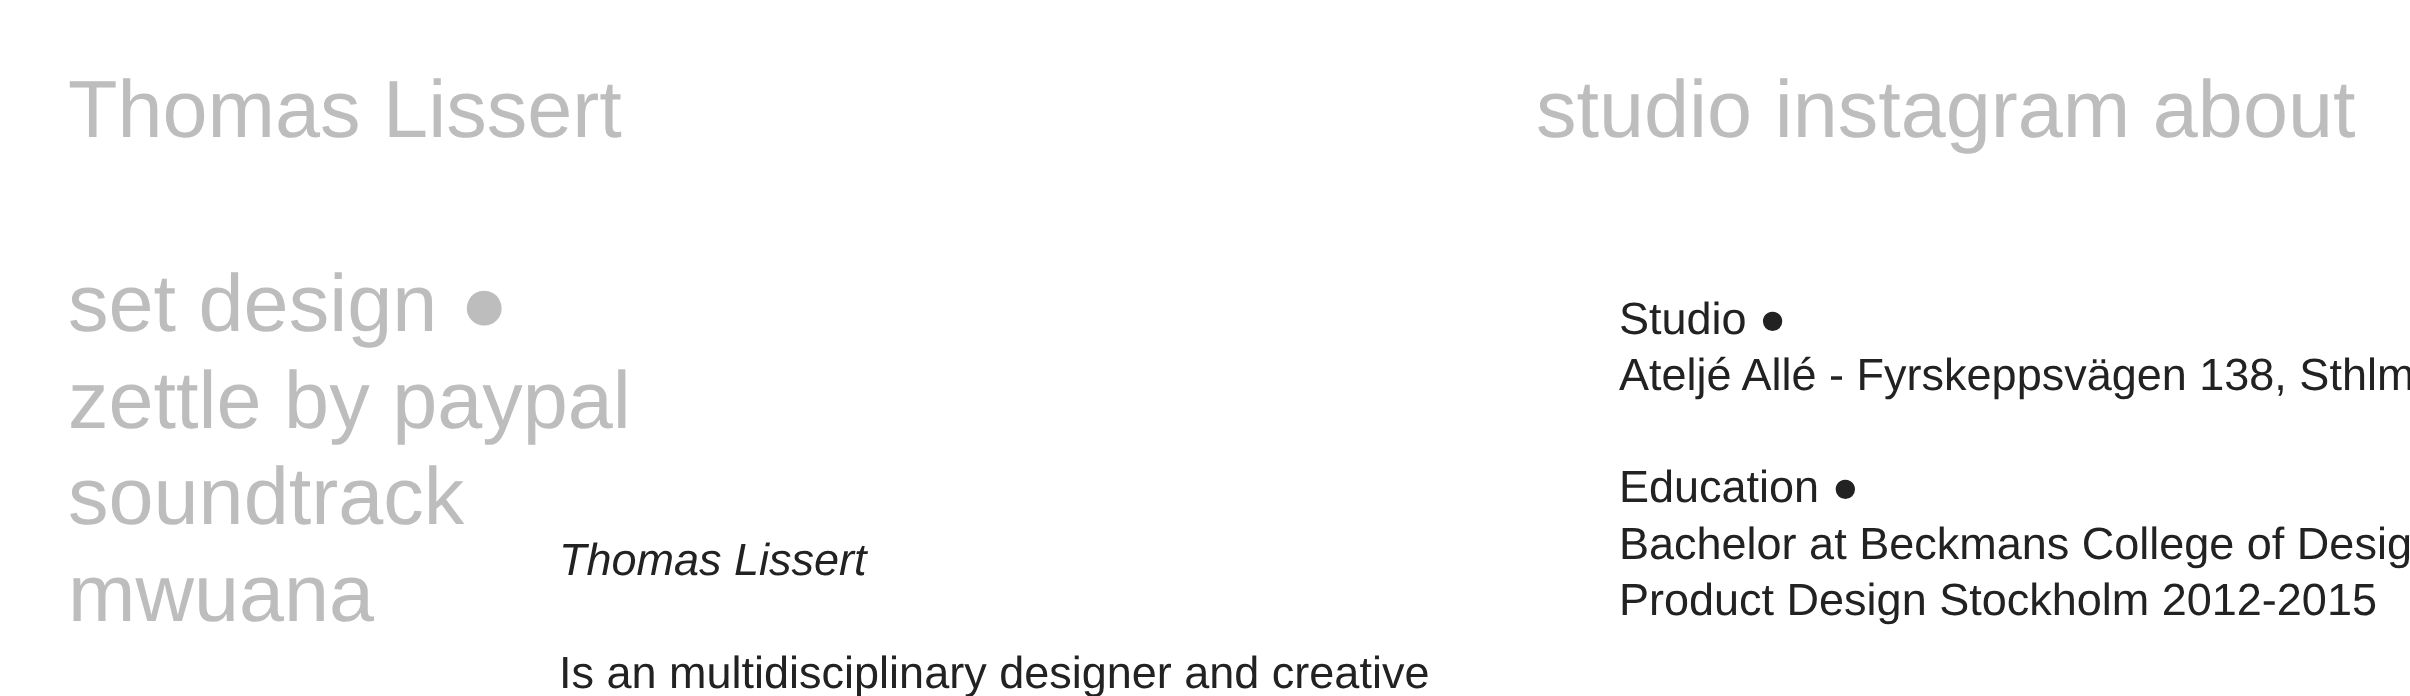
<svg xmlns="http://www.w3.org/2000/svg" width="2410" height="696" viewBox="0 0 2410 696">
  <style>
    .t1 { font: 81px Liberation Sans; fill: #bdbdbd; }
    .t2 { font: italic 45px Liberation Sans; fill: #222; }
    .t3 { font: 45px Liberation Sans; fill: #222; }
  </style>
  <rect width="100%" height="100%" fill="#fff"/>
  <text x="68" y="137" class="t1">Thomas Lissert</text>
  <text x="68" y="331" class="t1">set design ●</text>
  <text x="68" y="428" class="t1">zettle by paypal</text>
  <text x="68" y="524" class="t1">soundtrack</text>
  <text x="68" y="621" class="t1">mwuana</text>
  <text x="1536" y="137" class="t1">studio instagram about</text>
  <text x="559" y="575" class="t2">Thomas Lissert</text>
  <text x="559" y="688" class="t3">Is an multidisciplinary designer and creative</text>
  <text x="1619" y="334" class="t3">Studio ●</text>
  <text x="1619" y="390" class="t3">Ateljé Allé - Fyrskeppsvägen 138, Sthlm</text>
  <text x="1619" y="502" class="t3">Education ●</text>
  <text x="1619" y="559" class="t3">Bachelor at Beckmans College of Desig</text>
  <text x="1619" y="615" class="t3">Product Design Stockholm 2012-2015</text>
</svg>
